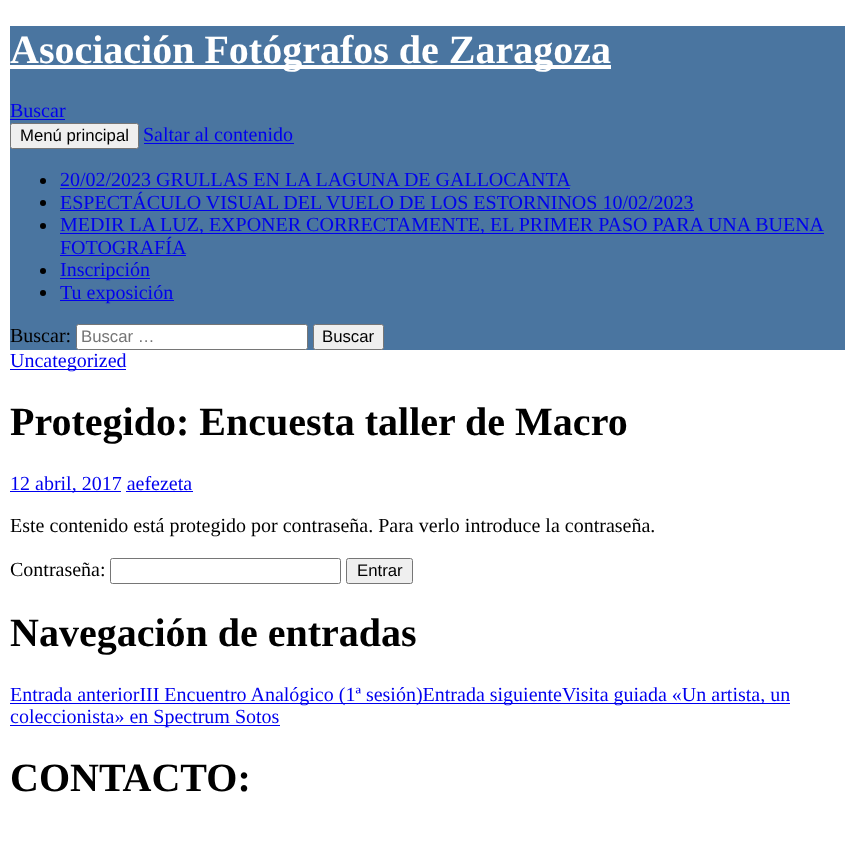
<svg xmlns="http://www.w3.org/2000/svg" width="854" height="853" viewBox="0 0 854 853">
  <style>
    .t1 { font: bold 40px Liberation Serif; fill: #fff; }
    .t2 { font: 20px Liberation Serif; fill: #00e; }
    .t3 { font: 16.75px Liberation Sans; fill: #000; }
    .t4 { font: 20px Liberation Serif; fill: #000; }
    .t5 { font: 16.75px Liberation Sans; fill: #757575; }
    .t6 { font: bold 40px Liberation Serif; fill: #000; }
  </style>
  <rect width="100%" height="100%" fill="#fff"/>
  <rect x="10" y="26" width="835" height="324" fill="#4a75a0"/>
  <rect x="10" y="65" width="601" height="4" fill="#fff"/>
  <text x="10" y="63" class="t1">Asociación Fotógrafos de Zaragoza</text>
  <text x="10" y="117" class="t2">Buscar</text>
  <rect x="10" y="119" width="55" height="1" fill="#00e"/>
  <rect x="10.5" y="123.5" width="128" height="25" rx="2" fill="#efefef" stroke="#767676"/>
  <text x="20" y="141" class="t3">Menú principal</text>
  <text x="143" y="141" class="t2">Saltar al contenido</text>
  <rect x="144" y="143" width="150" height="1" fill="#00e"/>
  <circle cx="43" cy="181" r="3" fill="#000"/>
  <text x="60" y="186" class="t2">20/02/2023 GRULLAS EN LA LAGUNA DE GALLOCANTA</text>
  <rect x="60" y="188" width="510" height="1" fill="#00e"/>
  <circle cx="43" cy="203" r="3" fill="#000"/>
  <text x="60" y="209" class="t2">ESPECTÁCULO VISUAL DEL VUELO DE LOS ESTORNINOS 10/02/2023</text>
  <rect x="60" y="210" width="634" height="1" fill="#00e"/>
  <circle cx="43" cy="226" r="3" fill="#000"/>
  <rect x="60" y="233" width="764" height="1" fill="#00e"/>
  <text x="60" y="231" class="t2">MEDIR LA LUZ, EXPONER CORRECTAMENTE, EL PRIMER PASO PARA UNA BUENA</text>
  <text x="60" y="254" class="t2">FOTOGRAFÍA</text>
  <rect x="60" y="255" width="126" height="1" fill="#00e"/>
  <circle cx="43" cy="271" r="3" fill="#000"/>
  <rect x="60" y="278" width="90" height="1" fill="#00e"/>
  <text x="60" y="276" class="t2">Inscripción</text>
  <circle cx="43" cy="293" r="3" fill="#000"/>
  <rect x="60" y="300" width="114" height="1" fill="#00e"/>
  <text x="60" y="299" class="t2">Tu exposición</text>
  <text x="10" y="342" class="t4">Buscar:</text>
  <rect x="76.5" y="324.5" width="231" height="25" rx="2" fill="#fff" stroke="#767676"/>
  <text x="81" y="342" class="t5">Buscar …</text>
  <rect x="313.5" y="324.5" width="70" height="25" rx="2" fill="#efefef" stroke="#767676"/>
  <text x="322" y="342" class="t3">Buscar</text>
  <rect x="10" y="369" width="116" height="1" fill="#00e"/>
  <text x="10" y="367" class="t2">Uncategorized</text>
  <text x="10" y="435" class="t6">Protegido: Encuesta taller de Macro</text>
  <rect x="10" y="491" width="111" height="1" fill="#00e"/>
  <text x="10" y="490" class="t2">12 abril, 2017 aefezeta</text>
  <rect x="126" y="491" width="67" height="1" fill="#00e"/>
  <text x="10" y="532" class="t4">Este contenido está protegido por contraseña. Para verlo introduce la contraseña.</text>
  <text x="10" y="576" class="t4">Contraseña:</text>
  <rect x="110.5" y="558.5" width="230" height="25" rx="2" fill="none" stroke="#767676"/>
  <rect x="346.5" y="558.5" width="66" height="25" rx="2" fill="#efefef" stroke="#767676"/>
  <text x="357" y="576" class="t3">Entrar</text>
  <text x="10" y="646" class="t6">Navegación de entradas</text>
  <rect x="10" y="703" width="780" height="1" fill="#00e"/>
  <text x="10" y="701" class="t2">Entrada anteriorIII Encuentro Analógico (1ª sesión)Entrada siguienteVisita guiada «Un artista, un</text>
  <rect x="10" y="725" width="270" height="1" fill="#00e"/>
  <text x="10" y="723" class="t2">coleccionista» en Spectrum Sotos</text>
  <text x="10" y="791" class="t6">CONTACTO:</text>
</svg>
